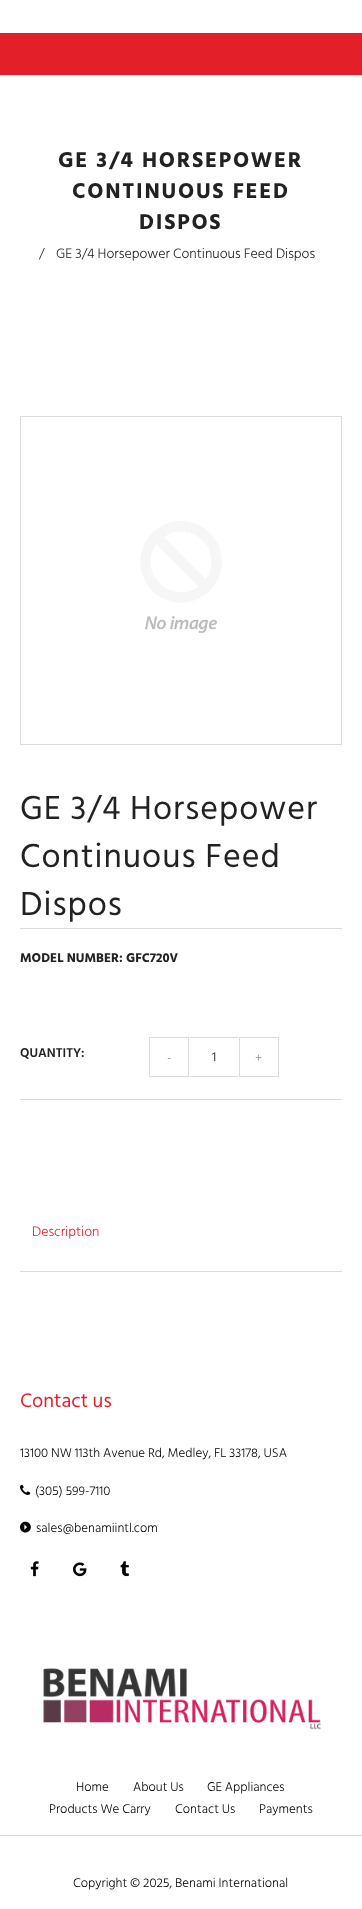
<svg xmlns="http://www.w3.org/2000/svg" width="362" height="1909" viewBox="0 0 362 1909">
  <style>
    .t1 { font: bold 22px Hind Siliguri; letter-spacing: 1.75px; fill: #212224; }
    .t2 { font: 300 14px Hind Siliguri; fill: #212224; }
    .t3 { font: 34px Hind Siliguri; letter-spacing: 1px; fill: #212224; }
    .t4 { font: bold 13px Hind Siliguri; fill: #212224; }
    .t5 { font: 600 13px Hind Siliguri; fill: #212224; }
    .t6 { font: 300 13px Hind Siliguri; fill: #8b8b8b; }
    .t7 { font: 13px Hind Siliguri; fill: #353535; }
    .t8 { font: 300 14px Hind Siliguri; fill: #e31f29; }
    .t9 { font: 20px Hind Siliguri; fill: #e31f29; }
    .t10 { font: 300 13px Hind Siliguri; fill: #030303; }
  </style>
  <rect width="100%" height="100%" fill="#e31f29"/>
  <rect x="0" y="0" width="362" height="33" fill="#fff"/>
  <rect x="0" y="75" width="362" height="1760" fill="#fff"/>
  <text x="58" y="167" class="t1">GE 3/4 HORSEPOWER</text>
  <text x="72" y="198" class="t1">CONTINUOUS FEED</text>
  <text x="139" y="229" class="t1">DISPOS</text>
  <text x="39" y="258" class="t2">/</text>
  <text x="56" y="258" class="t2">GE 3/4 Horsepower Continuous Feed Dispos</text>
  <rect x="20.5" y="416.5" width="321" height="328" fill="none" stroke="#dbdbdb"/>
  <image x="140" y="521" width="82" height="112" href="images/1.png"/>
  <text x="20" y="819" class="t3">GE 3/4 Horsepower</text>
  <text x="20" y="867" class="t3">Continuous Feed</text>
  <text x="20" y="915" class="t3">Dispos</text>
  <rect x="20" y="928" width="322" height="1" fill="#dbdbdb"/>
  <text x="20" y="962" class="t4">MODEL NUMBER: GFC720V</text>
  <text x="20" y="1057" class="t5">QUANTITY:</text>
  <rect x="149.5" y="1037.5" width="39" height="39" fill="none" stroke="#dbdbdb"/>
  <text x="167" y="1062" class="t6">-</text>
  <rect x="190" y="1037" width="48" height="1" fill="#dbdbdb"/>
  <rect x="190" y="1076" width="48" height="1" fill="#dbdbdb"/>
  <text x="212" y="1061" class="t7">1</text>
  <rect x="239.5" y="1037.5" width="39" height="39" fill="none" stroke="#dbdbdb"/>
  <text x="255" y="1062" class="t6">+</text>
  <rect x="20" y="1099" width="322" height="1" fill="#dbdbdb"/>
  <text x="32" y="1236" class="t8">Description</text>
  <rect x="20" y="1271" width="322" height="1" fill="#dbdbdb"/>
  <rect x="0" y="1835" width="362" height="1" fill="#dbdbdb"/>
  <text x="20" y="1407" class="t9">Contact us</text>
  <text x="20" y="1457" class="t10">13100 NW 113th Avenue Rd, Medley, FL 33178, USA</text>
  <image x="20" y="1484" width="11" height="11" href="images/2.png"/>
  <text x="35" y="1495" class="t10">(305) 599-7110</text>
  <image x="20" y="1521" width="11" height="12" href="images/3.png"/>
  <text x="36" y="1532" class="t10">sales@benamiintl.com</text>
  <image x="30" y="1561" width="9" height="16" href="images/4.png"/>
  <image x="73" y="1562" width="14" height="15" href="images/5.png"/>
  <image x="120" y="1561" width="10" height="16" href="images/6.png"/>
  <image x="43" y="1668" width="278" height="62" href="images/7.png"/>
  <text x="76" y="1791" class="t10">Home</text>
  <text x="133" y="1791" class="t10">About Us</text>
  <text x="207" y="1791" class="t10">GE Appliances</text>
  <text x="49" y="1813" class="t10">Products We Carry</text>
  <text x="175" y="1813" class="t10">Contact Us</text>
  <text x="259" y="1813" class="t10">Payments</text>
  <rect x="0" y="1836" width="362" height="73" fill="#fff"/>
  <text x="73" y="1887" class="t10">Copyright © 2025, Benami International</text>
</svg>
